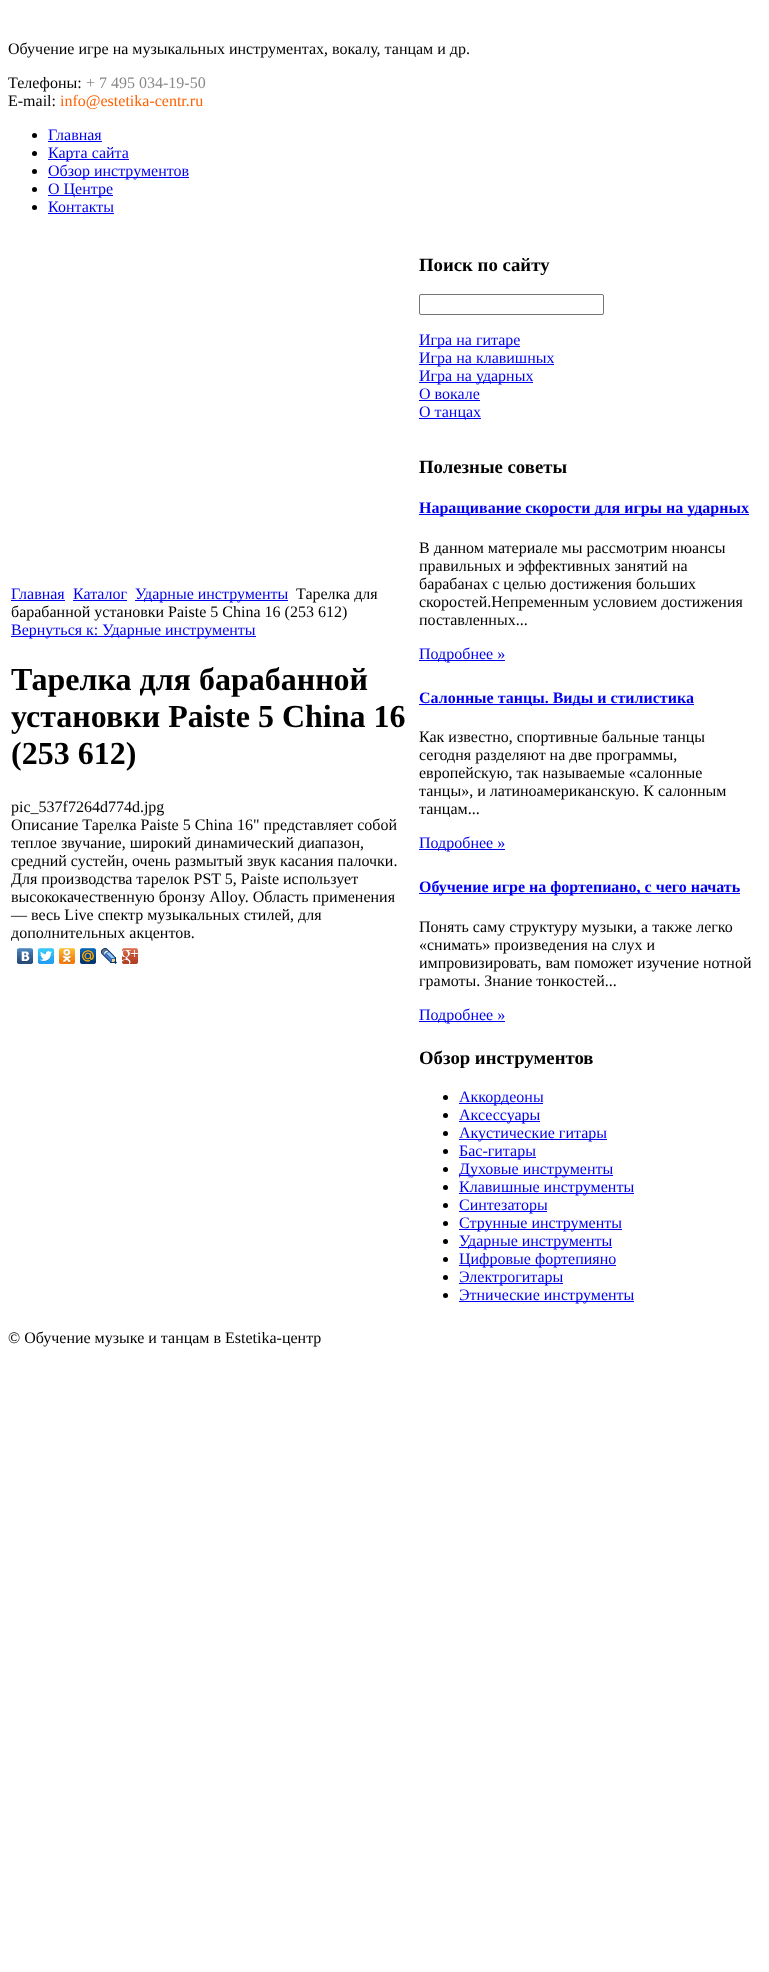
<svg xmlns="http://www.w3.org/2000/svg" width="769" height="1972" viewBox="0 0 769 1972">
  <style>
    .t1 { font: 16px Liberation Serif; fill: #000; }
    .t2 { font: 16px Liberation Serif; fill: #888; }
    .t3 { font: 16px Liberation Serif; fill: #ff6100; }
    .t4 { font: 16px Liberation Serif; fill: #00e; }
    .t5 { font: bold 32px Liberation Serif; fill: #000; }
    .t6 { font: bold 18.75px Liberation Serif; fill: #000; }
    .t7 { font: bold 16px Liberation Serif; fill: #00e; }
  </style>
  <rect width="100%" height="100%" fill="#fff"/>
  <text x="8" y="54" class="t1">Обучение игре на музыкальных инструментах, вокалу, танцам и др.</text>
  <text x="8" y="88" class="t1">Телефоны:</text>
  <text x="86" y="88" class="t2">+ 7 495 034-19-50</text>
  <text x="8" y="106" class="t1">E-mail:</text>
  <text x="60" y="106" class="t3">info@estetika-centr.ru</text>
  <circle cx="34.5" cy="135.5" r="2.5" fill="#000"/>
  <text x="48" y="140" class="t4">Главная</text>
  <rect x="48" y="141" width="54" height="1" fill="#00e"/>
  <circle cx="34.5" cy="153.5" r="2.5" fill="#000"/>
  <rect x="48" y="159" width="81" height="1" fill="#00e"/>
  <text x="48" y="158" class="t4">Карта сайта</text>
  <circle cx="34.5" cy="171.5" r="2.5" fill="#000"/>
  <rect x="48" y="177" width="141" height="1" fill="#00e"/>
  <text x="48" y="176" class="t4">Обзор инструментов</text>
  <circle cx="34.5" cy="189.5" r="2.5" fill="#000"/>
  <rect x="48" y="195" width="65" height="1" fill="#00e"/>
  <text x="48" y="194" class="t4">О Центре</text>
  <circle cx="34.5" cy="207.5" r="2.5" fill="#000"/>
  <text x="48" y="212" class="t4">Контакты</text>
  <rect x="48" y="213" width="66" height="1" fill="#00e"/>
  <text x="11" y="599" class="t4">Главная</text>
  <rect x="11" y="600" width="54" height="1" fill="#00e"/>
  <text x="73" y="599" class="t4">Каталог</text>
  <rect x="73" y="600" width="54" height="1" fill="#00e"/>
  <rect x="135" y="600" width="153" height="1" fill="#00e"/>
  <text x="135" y="599" class="t4">Ударные инструменты</text>
  <text x="296" y="599" class="t1">Тарелка для</text>
  <text x="11" y="617" class="t1">барабанной установки Paiste 5 China 16 (253 612)</text>
  <rect x="11" y="636" width="245" height="1" fill="#00e"/>
  <text x="11" y="635" class="t4">Вернуться к: Ударные инструменты</text>
  <text x="11" y="690" class="t5">Тарелка для барабанной</text>
  <text x="11" y="727" class="t5">установки Paiste 5 China 16</text>
  <text x="11" y="764" class="t5">(253 612)</text>
  <text x="11" y="812" class="t1">pic_537f7264d774d.jpg</text>
  <text x="11" y="830" class="t1">Описание Тарелка Paiste 5 China 16" представляет собой</text>
  <text x="11" y="848" class="t1">теплое звучание, широкий динамический диапазон,</text>
  <text x="11" y="866" class="t1">средний сустейн, очень размытый звук касания палочки.</text>
  <text x="11" y="884" class="t1">Для производства тарелок PST 5, Paiste использует</text>
  <text x="11" y="902" class="t1">высококачественную бронзу Alloy. Область применения</text>
  <text x="11" y="920" class="t1">— весь Live спектр музыкальных стилей, для</text>
  <text x="11" y="938" class="t1">дополнительных акцентов.</text>
  <image x="17" y="948" width="16" height="16" href="images/1.png"/>
  <image x="38" y="948" width="16" height="16" href="images/2.png"/>
  <image x="59" y="948" width="16" height="16" href="images/3.png"/>
  <image x="80" y="948" width="16" height="16" href="images/4.png"/>
  <image x="101" y="948" width="16" height="16" href="images/5.png"/>
  <image x="122" y="948" width="16" height="16" href="images/6.png"/>
  <text x="419" y="271" class="t6">Поиск по сайту</text>
  <rect x="419.5" y="294.5" width="184" height="20" rx="1.5" fill="none" stroke="#767676"/>
  <rect x="419" y="346" width="101" height="1" fill="#00e"/>
  <text x="419" y="345" class="t4">Игра на гитаре</text>
  <rect x="419" y="364" width="135" height="1" fill="#00e"/>
  <text x="419" y="363" class="t4">Игра на клавишных</text>
  <rect x="419" y="382" width="114" height="1" fill="#00e"/>
  <text x="419" y="381" class="t4">Игра на ударных</text>
  <text x="419" y="399" class="t4">О вокале</text>
  <rect x="419" y="400" width="61" height="1" fill="#00e"/>
  <rect x="419" y="418" width="62" height="1" fill="#00e"/>
  <text x="419" y="417" class="t4">О танцах</text>
  <text x="419" y="473" class="t6">Полезные советы</text>
  <rect x="419" y="514" width="330" height="1" fill="#00e"/>
  <text x="419" y="513" class="t7">Наращивание скорости для игры на ударных</text>
  <text x="419" y="553" class="t1">В данном материале мы рассмотрим нюансы</text>
  <text x="419" y="571" class="t1">правильных и эффективных занятий на</text>
  <text x="419" y="589" class="t1">барабанах с целью достижения больших</text>
  <text x="419" y="607" class="t1">скоростей.Непременным условием достижения</text>
  <text x="419" y="625" class="t1">поставленных...</text>
  <rect x="419" y="660" width="86" height="1" fill="#00e"/>
  <text x="419" y="659" class="t4">Подробнее »</text>
  <rect x="419" y="704" width="275" height="1" fill="#00e"/>
  <text x="419" y="703" class="t7">Салонные танцы. Виды и стилистика</text>
  <text x="419" y="742" class="t1">Как известно, спортивные бальные танцы</text>
  <text x="419" y="760" class="t1">сегодня разделяют на две программы,</text>
  <text x="419" y="778" class="t1">европейскую, так называемые «салонные</text>
  <text x="419" y="796" class="t1">танцы», и латиноамериканскую. К салонным</text>
  <text x="419" y="814" class="t1">танцам...</text>
  <rect x="419" y="849" width="86" height="1" fill="#00e"/>
  <text x="419" y="848" class="t4">Подробнее »</text>
  <rect x="419" y="893" width="321" height="1" fill="#00e"/>
  <text x="419" y="892" class="t7">Обучение игре на фортепиано, с чего начать</text>
  <text x="419" y="932" class="t1">Понять саму структуру музыки, а также легко</text>
  <text x="419" y="950" class="t1">«снимать» произведения на слух и</text>
  <text x="419" y="968" class="t1">импровизировать, вам поможет изучение нотной</text>
  <text x="419" y="986" class="t1">грамоты. Знание тонкостей...</text>
  <rect x="419" y="1021" width="86" height="1" fill="#00e"/>
  <text x="419" y="1020" class="t4">Подробнее »</text>
  <text x="419" y="1064" class="t6">Обзор инструментов</text>
  <circle cx="445.5" cy="1097.5" r="2.5" fill="#000"/>
  <rect x="459" y="1103" width="84" height="1" fill="#00e"/>
  <text x="459" y="1102" class="t4">Аккордеоны</text>
  <circle cx="445.5" cy="1115.5" r="2.5" fill="#000"/>
  <rect x="459" y="1121" width="81" height="1" fill="#00e"/>
  <text x="459" y="1120" class="t4">Аксессуары</text>
  <circle cx="445.5" cy="1133.5" r="2.5" fill="#000"/>
  <rect x="459" y="1139" width="148" height="1" fill="#00e"/>
  <text x="459" y="1138" class="t4">Акустические гитары</text>
  <circle cx="445.5" cy="1151.5" r="2.5" fill="#000"/>
  <rect x="459" y="1157" width="77" height="1" fill="#00e"/>
  <text x="459" y="1156" class="t4">Бас-гитары</text>
  <circle cx="445.5" cy="1169.5" r="2.5" fill="#000"/>
  <rect x="459" y="1175" width="154" height="1" fill="#00e"/>
  <text x="459" y="1174" class="t4">Духовые инструменты</text>
  <circle cx="445.5" cy="1187.5" r="2.5" fill="#000"/>
  <rect x="459" y="1193" width="175" height="1" fill="#00e"/>
  <text x="459" y="1192" class="t4">Клавишные инструменты</text>
  <circle cx="445.5" cy="1205.5" r="2.5" fill="#000"/>
  <rect x="459" y="1211" width="88" height="1" fill="#00e"/>
  <text x="459" y="1210" class="t4">Синтезаторы</text>
  <circle cx="445.5" cy="1223.5" r="2.5" fill="#000"/>
  <rect x="459" y="1229" width="163" height="1" fill="#00e"/>
  <text x="459" y="1228" class="t4">Струнные инструменты</text>
  <circle cx="445.5" cy="1241.5" r="2.5" fill="#000"/>
  <rect x="459" y="1247" width="153" height="1" fill="#00e"/>
  <text x="459" y="1246" class="t4">Ударные инструменты</text>
  <circle cx="445.5" cy="1259.5" r="2.5" fill="#000"/>
  <rect x="459" y="1265" width="157" height="1" fill="#00e"/>
  <text x="459" y="1264" class="t4">Цифровые фортепияно</text>
  <circle cx="445.5" cy="1277.5" r="2.5" fill="#000"/>
  <rect x="459" y="1283" width="104" height="1" fill="#00e"/>
  <text x="459" y="1282" class="t4">Электрогитары</text>
  <circle cx="445.5" cy="1295.5" r="2.5" fill="#000"/>
  <rect x="459" y="1301" width="175" height="1" fill="#00e"/>
  <text x="459" y="1300" class="t4">Этнические инструменты</text>
  <text x="8" y="1343" class="t1">© Обучение музыке и танцам в Estetika-центр</text>
</svg>
